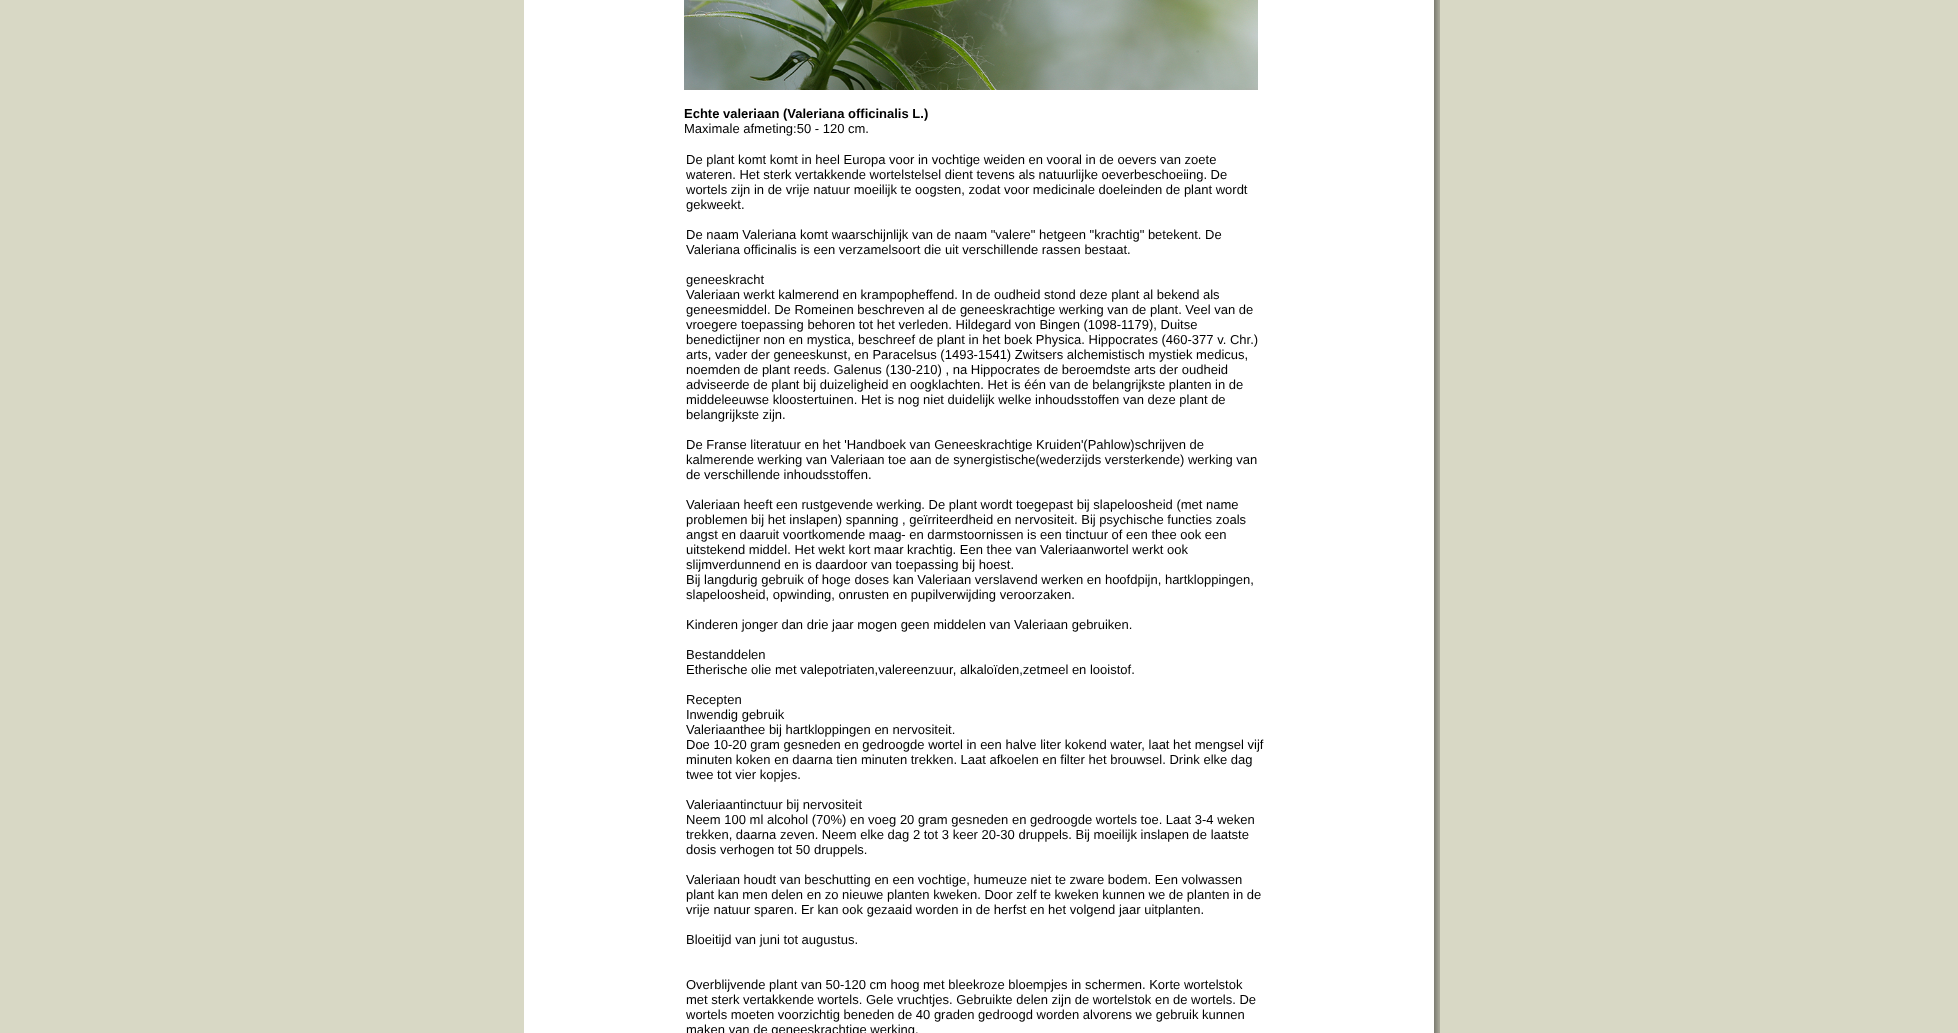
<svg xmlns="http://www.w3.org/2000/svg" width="1958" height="1033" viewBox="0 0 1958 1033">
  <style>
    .t1 { font: bold 13px Liberation Sans; fill: #000; }
    .t2 { font: 13px Liberation Sans; fill: #000; }
  </style>
  <rect width="100%" height="100%" fill="#d8d8c5"/>
  <rect x="524" y="0" width="910" height="1033" fill="#fff"/>
  <image x="1434" y="0" width="6" height="1033" href="images/1.png"/>
  <image x="684" y="0" width="574" height="90" href="images/2.png"/>
  <text x="684" y="118" class="t1">Echte valeriaan (Valeriana officinalis L.)</text>
  <text x="684" y="133" class="t2">Maximale afmeting:50 - 120 cm.</text>
  <text x="686" y="164" class="t2">De plant komt komt in heel Europa voor in vochtige weiden en vooral in de oevers van zoete</text>
  <text x="686" y="179" class="t2">wateren. Het sterk vertakkende wortelstelsel dient tevens als natuurlijke oeverbeschoeiing. De</text>
  <text x="686" y="194" class="t2">wortels zijn in de vrije natuur moeilijk te oogsten, zodat voor medicinale doeleinden de plant wordt</text>
  <text x="686" y="209" class="t2">gekweekt.</text>
  <text x="686" y="239" class="t2">De naam Valeriana komt waarschijnlijk van de naam "valere" hetgeen "krachtig" betekent. De</text>
  <text x="686" y="254" class="t2">Valeriana officinalis is een verzamelsoort die uit verschillende rassen bestaat.</text>
  <text x="686" y="284" class="t2">geneeskracht</text>
  <text x="686" y="299" class="t2">Valeriaan werkt kalmerend en krampopheffend. In de oudheid stond deze plant al bekend als</text>
  <text x="686" y="314" class="t2">geneesmiddel. De Romeinen beschreven al de geneeskrachtige werking van de plant. Veel van de</text>
  <text x="686" y="329" class="t2">vroegere toepassing behoren tot het verleden. Hildegard von Bingen (1098-1179), Duitse</text>
  <text x="686" y="344" class="t2">benedictijner non en mystica, beschreef de plant in het boek Physica. Hippocrates (460-377 v. Chr.)</text>
  <text x="686" y="359" class="t2">arts, vader der geneeskunst, en Paracelsus (1493-1541) Zwitsers alchemistisch mystiek medicus,</text>
  <text x="686" y="374" class="t2">noemden de plant reeds. Galenus (130-210) , na Hippocrates de beroemdste arts der oudheid</text>
  <text x="686" y="389" class="t2">adviseerde de plant bij duizeligheid en oogklachten. Het is één van de belangrijkste planten in de</text>
  <text x="686" y="404" class="t2">middeleeuwse kloostertuinen. Het is nog niet duidelijk welke inhoudsstoffen van deze plant de</text>
  <text x="686" y="419" class="t2">belangrijkste zijn.</text>
  <text x="686" y="449" class="t2">De Franse literatuur en het 'Handboek van Geneeskrachtige Kruiden'(Pahlow)schrijven de</text>
  <text x="686" y="464" class="t2">kalmerende werking van Valeriaan toe aan de synergistische(wederzijds versterkende) werking van</text>
  <text x="686" y="479" class="t2">de verschillende inhoudsstoffen.</text>
  <text x="686" y="509" class="t2">Valeriaan heeft een rustgevende werking. De plant wordt toegepast bij slapeloosheid (met name</text>
  <text x="686" y="524" class="t2">problemen bij het inslapen) spanning , geïrriteerdheid en nervositeit. Bij psychische functies zoals</text>
  <text x="686" y="539" class="t2">angst en daaruit voortkomende maag- en darmstoornissen is een tinctuur of een thee ook een</text>
  <text x="686" y="554" class="t2">uitstekend middel. Het wekt kort maar krachtig. Een thee van Valeriaanwortel werkt ook</text>
  <text x="686" y="569" class="t2">slijmverdunnend en is daardoor van toepassing bij hoest.</text>
  <text x="686" y="584" class="t2">Bij langdurig gebruik of hoge doses kan Valeriaan verslavend werken en hoofdpijn, hartkloppingen,</text>
  <text x="686" y="599" class="t2">slapeloosheid, opwinding, onrusten en pupilverwijding veroorzaken.</text>
  <text x="686" y="629" class="t2">Kinderen jonger dan drie jaar mogen geen middelen van Valeriaan gebruiken.</text>
  <text x="686" y="659" class="t2">Bestanddelen</text>
  <text x="686" y="674" class="t2">Etherische olie met valepotriaten,valereenzuur, alkaloïden,zetmeel en looistof.</text>
  <text x="686" y="704" class="t2">Recepten</text>
  <text x="686" y="719" class="t2">Inwendig gebruik</text>
  <text x="686" y="734" class="t2">Valeriaanthee bij hartkloppingen en nervositeit.</text>
  <text x="686" y="749" class="t2">Doe 10-20 gram gesneden en gedroogde wortel in een halve liter kokend water, laat het mengsel vijf</text>
  <text x="686" y="764" class="t2">minuten koken en daarna tien minuten trekken. Laat afkoelen en filter het brouwsel. Drink elke dag</text>
  <text x="686" y="779" class="t2">twee tot vier kopjes.</text>
  <text x="686" y="809" class="t2">Valeriaantinctuur bij nervositeit</text>
  <text x="686" y="824" class="t2">Neem 100 ml alcohol (70%) en voeg 20 gram gesneden en gedroogde wortels toe. Laat 3-4 weken</text>
  <text x="686" y="839" class="t2">trekken, daarna zeven. Neem elke dag 2 tot 3 keer 20-30 druppels. Bij moeilijk inslapen de laatste</text>
  <text x="686" y="854" class="t2">dosis verhogen tot 50 druppels.</text>
  <text x="686" y="884" class="t2">Valeriaan houdt van beschutting en een vochtige, humeuze niet te zware bodem. Een volwassen</text>
  <text x="686" y="899" class="t2">plant kan men delen en zo nieuwe planten kweken. Door zelf te kweken kunnen we de planten in de</text>
  <text x="686" y="914" class="t2">vrije natuur sparen. Er kan ook gezaaid worden in de herfst en het volgend jaar uitplanten.</text>
  <text x="686" y="944" class="t2">Bloeitijd van juni tot augustus.</text>
  <text x="686" y="989" class="t2">Overblijvende plant van 50-120 cm hoog met bleekroze bloempjes in schermen. Korte wortelstok</text>
  <text x="686" y="1004" class="t2">met sterk vertakkende wortels. Gele vruchtjes. Gebruikte delen zijn de wortelstok en de wortels. De</text>
  <text x="686" y="1019" class="t2">wortels moeten voorzichtig beneden de 40 graden gedroogd worden alvorens we gebruik kunnen</text>
  <text x="686" y="1034" class="t2">maken van de geneeskrachtige werking.</text>
</svg>
